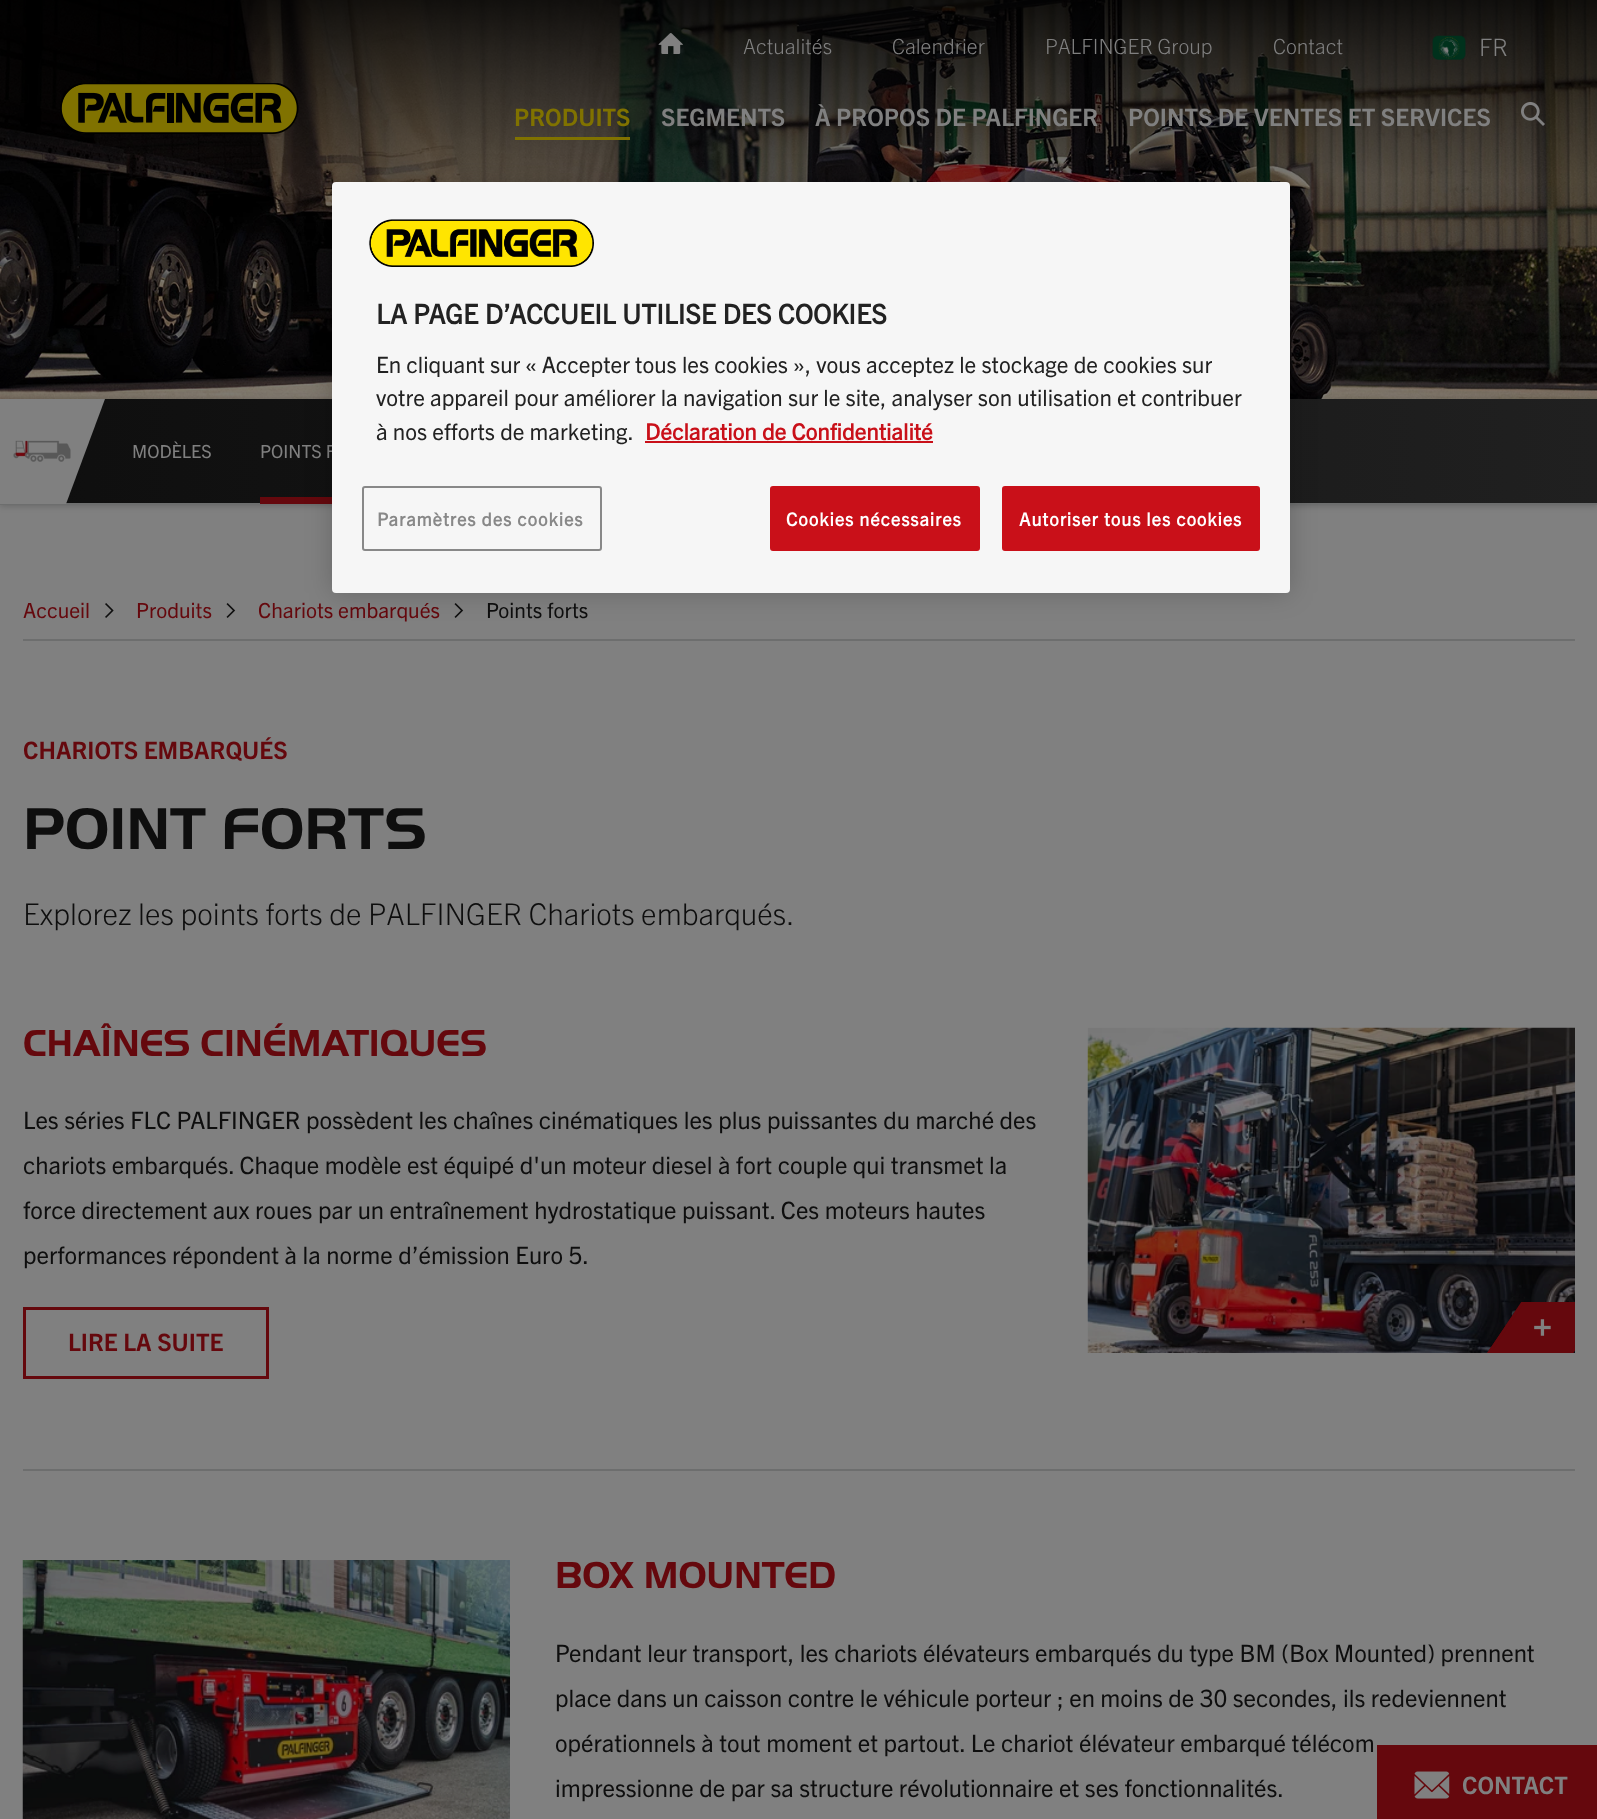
<svg xmlns="http://www.w3.org/2000/svg" width="1597" height="1819" viewBox="0 0 1597 1819">
  <style>
    .t1 { font: 300 21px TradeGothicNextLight; fill: #808080; }
    .t2 { font: 300 24px TradeGothicNextLight; fill: #808080; }
    .t3 { font: bold 24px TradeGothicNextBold; fill: #807200; }
    .t4 { font: bold 24px TradeGothicNextBold; fill: #808080; }
    .t5 { font: 18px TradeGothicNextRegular; fill: #808080; }
    .t6 { font: 21px TradeGothicNextRegular; fill: #65080d; }
    .t7 { font: 21px TradeGothicNextRegular; fill: #0e0e0e; }
    .t8 { font: bold 24px TradeGothicNextBold; fill: #65080d; }
    .t9 { font: 61.25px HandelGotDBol; fill: #0e0e0e; }
    .t10 { font: 300 30px TradeGothicNextLight; fill: #0e0e0e; }
    .t11 { font: 39px HandelGotDBol; fill: #65080d; }
    .t12 { font: 24px TradeGothicNextRegular; fill: #0e0e0e; }
    .t13 { font: bold 27px TradeGothicNextRegular; fill: #222; }
    .t14 { font: 22.5px TradeGothicNextRegular; fill: #222; }
    .t15 { font: bold 22.5px TradeGothicNextRegular; fill: #c91019; }
    .t16 { font: bold 18.25px TradeGothicNextRegular; letter-spacing: 0.9px; fill: #888; }
    .t17 { font: bold 18.25px TradeGothicNextRegular; letter-spacing: 0.9px; fill: #fff; }
  </style>
  <defs>
    <linearGradient id="g1" gradientUnits="userSpaceOnUse" x1="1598" y1="451" x2="0" y2="451"><stop offset="0" stop-color="#202020"/><stop offset="1" stop-color="#0e0e0e"/></linearGradient>
    <clipPath id="clip1"><rect x="1088" y="1028" width="487" height="325"/></clipPath>
  </defs>
  <rect width="100%" height="100%" fill="#808080"/>
  <image x="0" y="0" width="1597" height="399" href="images/5.png"/>
  <image x="658" y="33" width="25" height="21" href="images/1.png"/>
  <text x="743" y="54" class="t1">Actualités</text>
  <text x="892" y="54" class="t1">Calendrier</text>
  <text x="1045" y="54" class="t1">PALFINGER Group</text>
  <text x="1273" y="54" class="t1">Contact</text>
  <image x="1432" y="35" width="34" height="25" href="images/2.png"/>
  <text x="1479" y="56" class="t2">FR</text>
  <image x="60" y="83" width="239" height="51" href="images/3.png"/>
  <rect x="515" y="137" width="115" height="3" fill="#807200"/>
  <text x="514" y="126" class="t3">PRODUITS</text>
  <text x="661" y="126" class="t4">SEGMENTS</text>
  <text x="815" y="126" class="t4">À PROPOS DE PALFINGER</text>
  <text x="1128" y="126" class="t4">POINTS DE VENTES ET SERVICES</text>
  <image x="1521" y="102" width="24" height="24" href="images/4.png"/>
  <rect x="0" y="401" width="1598" height="105" fill="#00000033" filter="blur(3px)"/>
  <rect x="66" y="399" width="1531" height="104" fill="url(#g1)"/>
  <rect x="0" y="503" width="1597" height="2" fill="#6d6e6e"/>
  <path d="M-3 399H105L66 504H-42Z" fill="#808080"/>
  <image x="13" y="440" width="58" height="22" href="images/6.png"/>
  <text x="132" y="458" class="t5">MODÈLES</text>
  <text x="260" y="458" class="t5">POINTS F</text>
  <rect x="260" y="497" width="72" height="7" fill="#65080d"/>
  <rect x="23" y="639" width="1552" height="2" fill="#6d6e6e"/>
  <text x="23" y="618" class="t6">Accueil</text>
  <image x="105" y="603" width="9" height="15" href="images/7.png"/>
  <text x="136" y="618" class="t6">Produits</text>
  <image x="226" y="603" width="10" height="15" href="images/8.png"/>
  <text x="258" y="618" class="t6">Chariots embarqués</text>
  <image x="454" y="603" width="10" height="15" href="images/8.png"/>
  <text x="486" y="618" class="t7">Points forts</text>
  <text x="23" y="759" class="t8">CHARIOTS EMBARQUÉS</text>
  <text x="23" y="849" class="t9">POINT FORTS</text>
  <text x="23" y="925" class="t10">Explorez les points forts de PALFINGER Chariots embarqués.</text>
  <text x="23" y="1056" class="t11">CHAÎNES CINÉMATIQUES</text>
  <text x="23" y="1129" class="t12">Les séries FLC PALFINGER possèdent les chaînes cinématiques les plus puissantes du marché des</text>
  <text x="23" y="1174" class="t12">chariots embarqués. Chaque modèle est équipé d'un moteur diesel à fort couple qui transmet la</text>
  <text x="23" y="1219" class="t12">force directement aux roues par un entraînement hydrostatique puissant. Ces moteurs hautes</text>
  <text x="23" y="1264" class="t12">performances répondent à la norme d’émission Euro 5.</text>
  <rect x="24.5" y="1308.5" width="243" height="69" fill="none" stroke="#65080d" stroke-width="3"/>
  <text x="68" y="1351" class="t8">LIRE LA SUITE</text>
  <image x="1087" y="1027" width="488" height="326" href="images/9.png"/>
  <g clip-path="url(#clip1)">
    <path d="M1522 1302H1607L1573 1353H1487Z" fill="#65080d"/>
    <path d="M1522 1303.5H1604.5L1572.5 1351.5H1490Z" fill="none" stroke="#65080d" stroke-width="3"/>
  </g>
  <image x="1534" y="1319" width="17" height="17" href="images/10.png"/>
  <rect x="23" y="1469" width="1552" height="2" fill="#6d6e6e"/>
  <image x="22" y="1560" width="488" height="259" href="images/11.png"/>
  <text x="555" y="1588" class="t11">BOX MOUNTED</text>
  <text x="555" y="1662" class="t12">Pendant leur transport, les chariots élévateurs embarqués du type BM (Box Mounted) prennent</text>
  <text x="555" y="1707" class="t12">place dans un caisson contre le véhicule porteur ; en moins de 30 secondes, ils redeviennent</text>
  <text x="555" y="1752" class="t12">opérationnels à tout moment et partout. Le chariot élévateur embarqué télécom</text>
  <text x="555" y="1797" class="t12">impressionne de par sa structure révolutionnaire et ses fonctionnalités.</text>
  <rect x="1377" y="1745" width="220" height="74" fill="#65080d"/>
  <image x="1414" y="1771" width="36" height="28" href="images/12.png"/>
  <text x="1462" y="1794" class="t4">CONTACT</text>
  <rect x="332" y="182" width="958" height="411" rx="4" fill="#00000033" filter="blur(13.5px)"/>
  <rect x="332" y="182" width="958" height="411" rx="4" fill="#f6f6f6"/>
  <image x="368" y="219" width="226" height="48" href="images/13.png"/>
  <text x="376" y="324" class="t13">LA PAGE D’ACCUEIL UTILISE DES COOKIES</text>
  <text x="376" y="373" class="t14">En cliquant sur « Accepter tous les cookies », vous acceptez le stockage de cookies sur</text>
  <text x="376" y="406" class="t14">votre appareil pour améliorer la navigation sur le site, analyser son utilisation et contribuer</text>
  <text x="376" y="440" class="t14">à nos efforts de marketing.</text>
  <text x="645" y="440" class="t15">Déclaration de Confidentialité</text>
  <rect x="645" y="441" width="288" height="2" fill="#c91019"/>
  <rect x="363" y="487" width="238" height="63" rx="2" fill="none" stroke="#888" stroke-width="2"/>
  <text x="377" y="526" class="t16">Paramètres des cookies</text>
  <rect x="771" y="487" width="208" height="63" rx="2" fill="#c91019" stroke="#c91019" stroke-width="2"/>
  <text x="786" y="526" class="t17">Cookies nécessaires</text>
  <rect x="1003" y="487" width="256" height="63" rx="2" fill="#c91019" stroke="#c91019" stroke-width="2"/>
  <text x="1019" y="526" class="t17">Autoriser tous les cookies</text>
</svg>
